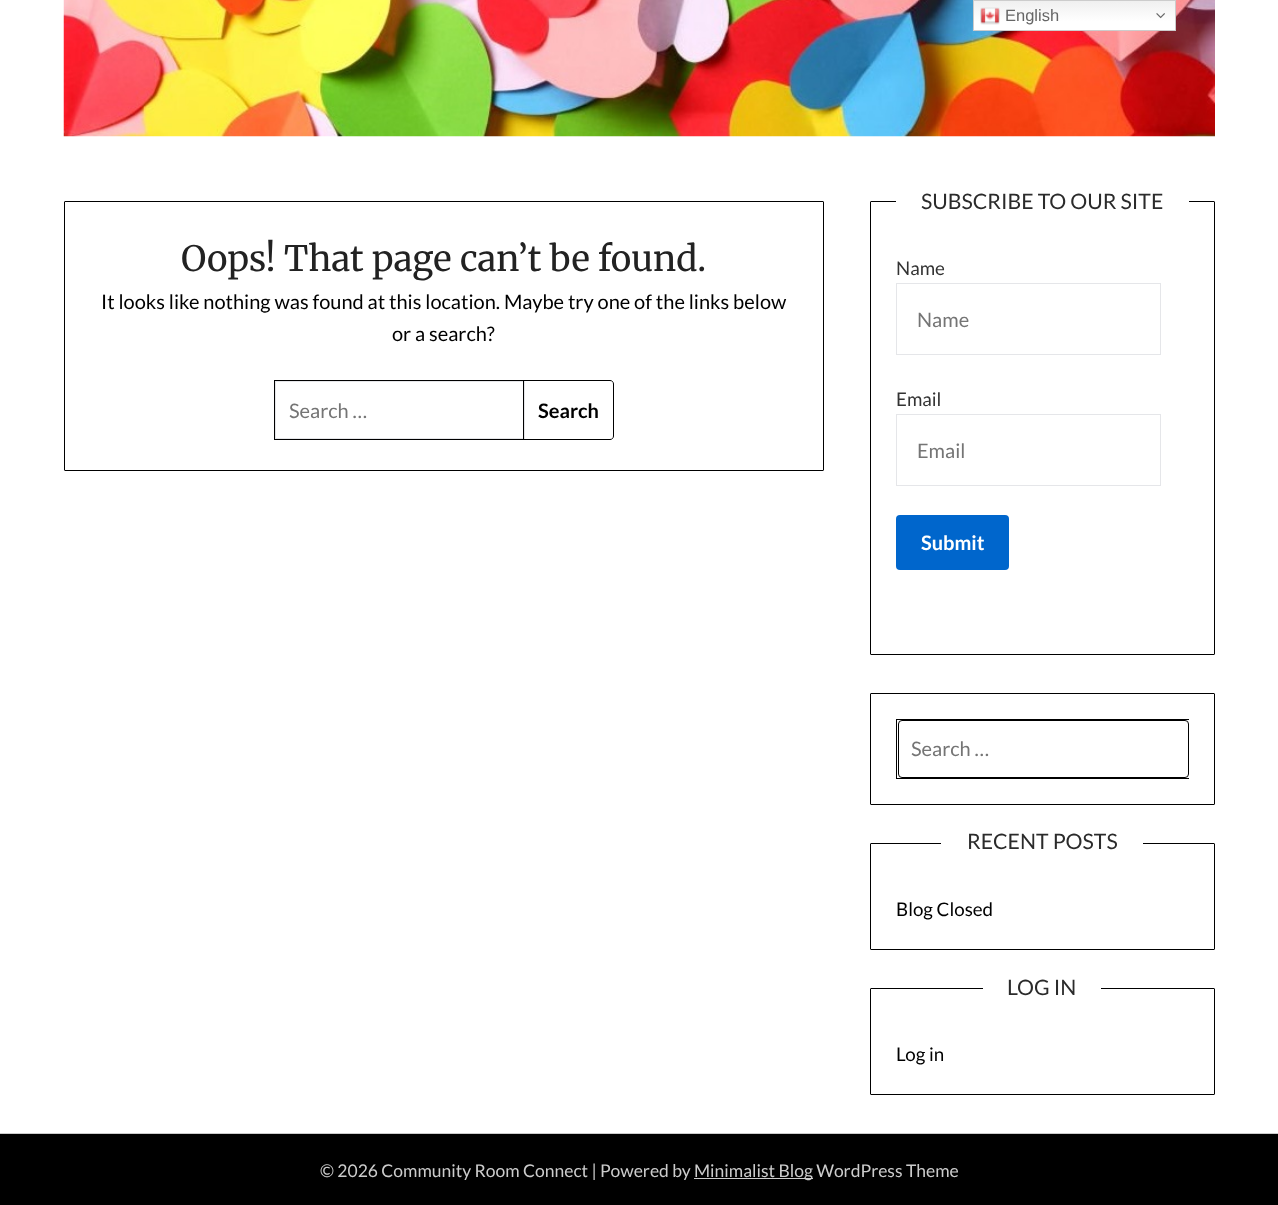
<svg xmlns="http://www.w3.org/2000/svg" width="1278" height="1205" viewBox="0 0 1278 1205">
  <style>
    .t1 { font: 16.5px Liberation Sans; fill: #666; }
    .t2 { font: 35px Merriweather; fill: #222; }
    .t3 { font: 20px Lato; fill: #000; }
    .t4 { font: 20px Lato; fill: #757575; }
    .t5 { font: bold 20px Lato; fill: #000; }
    .t6 { font: 21.25px Lato; fill: #2b2b2b; }
    .t7 { font: 18.75px Lato; fill: #333; }
    .t8 { font: bold 20px Lato; fill: #fff; }
    .t9 { font: 18.75px Lato; fill: #000; }
    .t10 { font: 17.5px Lato; fill: #ccc; }
  </style>
  <defs>
    <linearGradient id="g1" gradientUnits="userSpaceOnUse" x1="1074" y1="0" x2="1074" y2="31"><stop offset="0" stop-color="#efefef"/><stop offset="0.7" stop-color="#fff"/></linearGradient>
  </defs>
  <rect width="100%" height="100%" fill="#fff"/>
  <image x="63" y="0" width="1152" height="137" href="images/3.png"/>
  <rect x="974" y="1" width="201" height="29" fill="url(#g1)"/>
  <rect x="973.5" y="0.5" width="202" height="30" fill="none" stroke="#ccc"/>
  <image x="980" y="7" width="20" height="18" href="images/1.png"/>
  <text x="1005" y="21" class="t1">English</text>
  <image x="1156" y="13" width="9" height="6" href="images/2.png"/>
  <rect x="64.5" y="201.5" width="759" height="269" rx="0.5" fill="none" stroke="#000"/>
  <text x="181" y="271" class="t2">Oops! That page can’t be found.</text>
  <text x="101" y="309" class="t3">It looks like nothing was found at this location. Maybe try one of the links below</text>
  <text x="392" y="341" class="t3">or a search?</text>
  <rect x="274" y="380" width="251" height="1" fill="#000"/>
  <rect x="274" y="439" width="251" height="1" fill="#000"/>
  <rect x="274" y="380" width="1" height="60" fill="#000"/>
  <rect x="275.5" y="381.5" width="249" height="57" fill="none" stroke="#e5e6e9"/>
  <text x="289" y="418" class="t4">Search …</text>
  <path d="M523.5 380.5H610C612 380.5 613.5 382 613.5 384V436C613.5 438 612 439.5 610 439.5H523.5Z" fill="none" stroke="#000"/>
  <text x="538" y="418" class="t5">Search</text>
  <rect x="870.5" y="201.5" width="344" height="453" rx="0.5" fill="none" stroke="#000"/>
  <rect x="896" y="201" width="293" height="1" fill="#fff"/>
  <text x="921" y="209" class="t6">SUBSCRIBE TO OUR SITE</text>
  <text x="896" y="275" class="t7">Name</text>
  <rect x="896.5" y="283.5" width="264" height="71" fill="none" stroke="#e5e6e9"/>
  <text x="917" y="327" class="t4">Name</text>
  <text x="896" y="406" class="t7">Email</text>
  <rect x="896.5" y="414.5" width="264" height="71" fill="none" stroke="#e5e6e9"/>
  <text x="917" y="458" class="t4">Email</text>
  <rect x="896" y="515" width="113" height="55" rx="4" fill="#06c"/>
  <text x="921" y="550" class="t8">Submit</text>
  <rect x="870.5" y="693.5" width="344" height="111" rx="0.5" fill="none" stroke="#000"/>
  <rect x="896" y="719" width="293" height="1" fill="#000"/>
  <rect x="896" y="778" width="293" height="1" fill="#000"/>
  <rect x="896" y="719" width="1" height="60" fill="#000"/>
  <rect x="898.5" y="720.5" width="290" height="57" rx="3.5" fill="none" stroke="#000"/>
  <text x="911" y="756" class="t4">Search …</text>
  <rect x="870.5" y="843.5" width="344" height="106" rx="0.5" fill="none" stroke="#000"/>
  <rect x="941" y="843" width="202" height="1" fill="#fff"/>
  <text x="967" y="849" class="t6">RECENT POSTS</text>
  <text x="896" y="916" class="t9">Blog Closed</text>
  <rect x="870.5" y="988.5" width="344" height="106" rx="0.5" fill="none" stroke="#000"/>
  <rect x="983" y="988" width="118" height="1" fill="#fff"/>
  <text x="1007" y="995" class="t6">LOG IN</text>
  <text x="896" y="1061" class="t9">Log in</text>
  <rect x="0" y="1134" width="1278" height="71" fill="#000"/>
  <rect x="0" y="1133" width="1278" height="1" fill="#ccc"/>
  <text x="320" y="1177" class="t10">© 2026 Community Room Connect | Powered by</text>
  <rect x="694" y="1178" width="119" height="1" fill="#ccc"/>
  <text x="694" y="1177" class="t10">Minimalist Blog WordPress Theme</text>
</svg>
